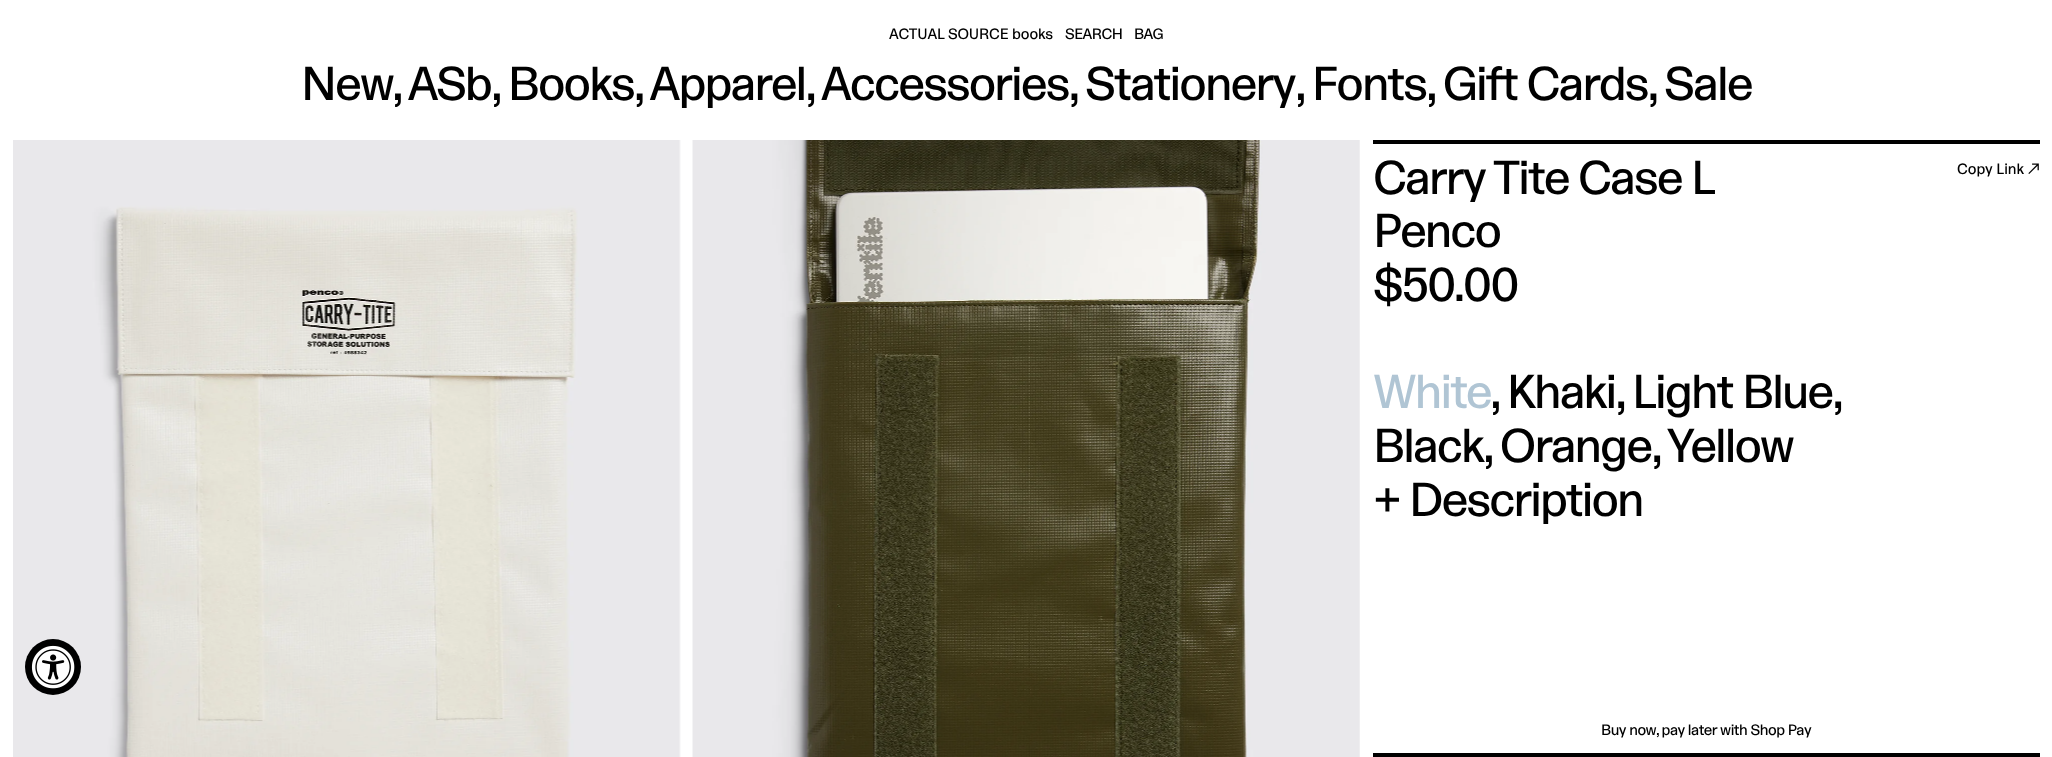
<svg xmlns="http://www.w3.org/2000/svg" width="2052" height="757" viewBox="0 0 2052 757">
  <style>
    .t1 { font: 500 15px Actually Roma; letter-spacing: -0.1px; fill: #000; }
    .t2 { font: 500 15px Actually Roma; letter-spacing: -0.5px; fill: #000; }
    .t3 { font: 500 47.5px Actually Roma; letter-spacing: -1.9px; fill: #000; }
    .t4 { font: 500 15px Actually Roma; fill: #000; }
    .t5 { font: 500 47.5px Actually Roma; letter-spacing: -1.9px; fill: #b0c5d4; }
    .t6 { font: 500 15px Actually Roma; letter-spacing: -0.45px; fill: #000; }
  </style>
  <rect width="100%" height="100%" fill="#fff"/>
  <image x="13" y="140" width="668" height="617" href="images/2.png"/>
  <circle cx="53" cy="667" r="28" fill="#000"/>
  <image x="31" y="645" width="44" height="44" href="images/1.png"/>
  <text x="889" y="39" class="t1">ACTUAL SOURCE books</text>
  <text x="1065" y="39" class="t2">SEARCH</text>
  <text x="1134" y="39" class="t2">BAG</text>
  <text x="301" y="100" class="t3">New</text>
  <text x="392" y="100" class="t3">, ASb, Books, Apparel, Accessories, Stationery</text>
  <text x="1295" y="100" class="t3">, Fonts, Gift Cards, Sale</text>
  <image x="692" y="140" width="668" height="617" href="images/3.png"/>
  <rect x="1373" y="140" width="667" height="4" fill="#000"/>
  <text x="1373" y="194" class="t3">Carry Tite Case L</text>
  <text x="1373" y="247" class="t3">Penco</text>
  <text x="1373" y="301" class="t3">$50.00</text>
  <text x="1957" y="174" class="t4">Copy Link ↗</text>
  <text x="1373" y="408" class="t5">White</text>
  <text x="1490" y="408" class="t3">, Khaki, Light Blue,</text>
  <text x="1373" y="462" class="t3">Black, Orange, Yellow</text>
  <text x="1373" y="516" class="t3">+</text>
  <text x="1409" y="516" class="t3">Description</text>
  <text x="1601" y="735" class="t6">Buy now, pay later with Shop Pay</text>
  <rect x="1373" y="753" width="667" height="4" fill="#000"/>
</svg>
